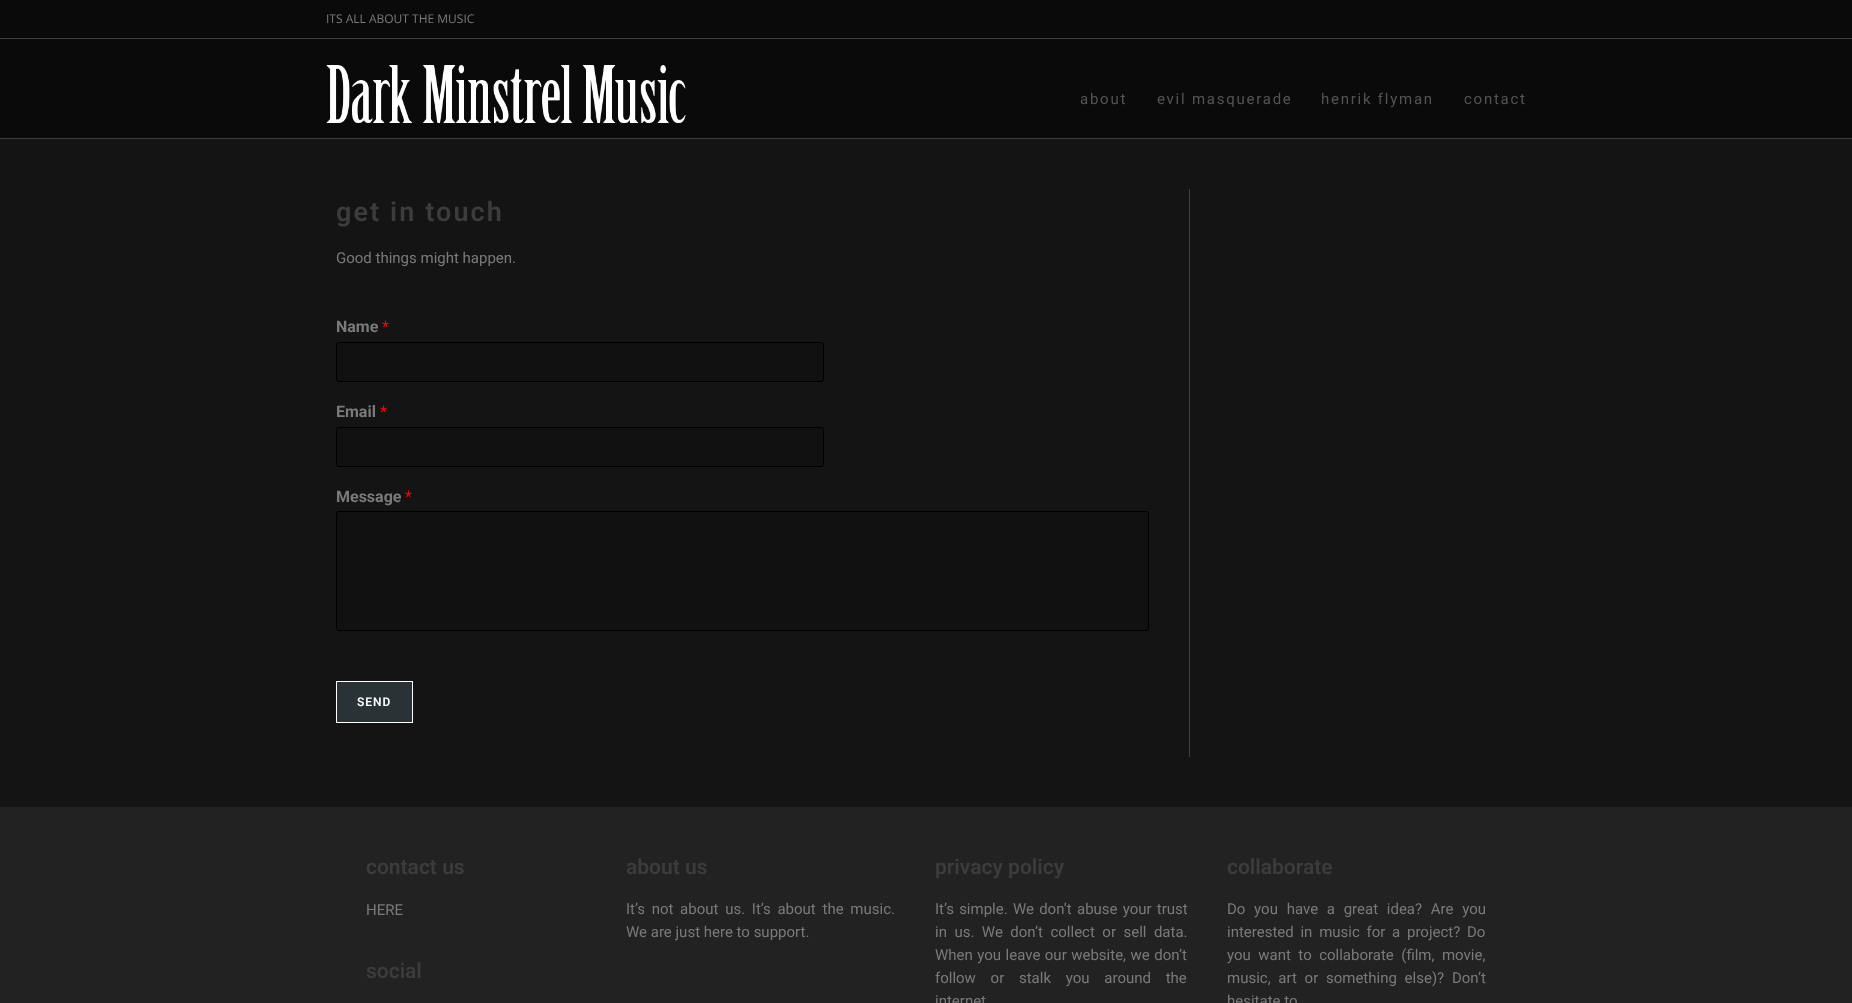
<svg xmlns="http://www.w3.org/2000/svg" width="1852" height="1003" viewBox="0 0 1852 1003">
  <style>
    .t1 { font: 12px Open Sans; fill: #7a7a7a; }
    .t2 { font: 15px Roboto; letter-spacing: 1.75px; fill: #545454; }
    .t3 { font: 600 27px Roboto; letter-spacing: 2.1px; fill: #3c3c3c; }
    .t4 { font: 15px Roboto; fill: #7a7a7a; }
    .t5 { font: bold 16px Roboto; fill: #7a7a7a; }
    .t6 { font: 16px Roboto; fill: #f00; }
    .t7 { font: 600 12px Roboto; letter-spacing: 1px; fill: #fff; }
    .t8 { font: 600 21px Roboto; fill: #3c3c3c; }
  </style>
  <rect width="100%" height="100%" fill="#141414"/>
  <rect x="0" y="0" width="1852" height="38" fill="#0a0a0a"/>
  <rect x="0" y="38" width="1852" height="1" fill="#3f3f3f"/>
  <text x="326" y="23" class="t1">ITS ALL ABOUT THE MUSIC</text>
  <rect x="0" y="39" width="1852" height="99" fill="#0a0a0a"/>
  <rect x="0" y="138" width="1852" height="1" fill="#3f3f3f"/>
  <image x="326" y="65" width="360" height="58" href="images/1.png"/>
  <text x="1080" y="104" class="t2">about</text>
  <text x="1157" y="104" class="t2">evil masquerade</text>
  <text x="1321" y="104" class="t2">henrik flyman</text>
  <text x="1464" y="104" class="t2">contact</text>
  <rect x="1189" y="189" width="1" height="568" fill="#3f3f3f"/>
  <text x="336" y="221" class="t3">get in touch</text>
  <text x="336" y="263" class="t4">Good things might happen.</text>
  <text x="336" y="332" class="t5">Name</text>
  <text x="382" y="332" class="t6">*</text>
  <rect x="336.5" y="342.5" width="487" height="39" rx="2.5" fill="#121111" stroke="#000"/>
  <text x="336" y="417" class="t5">Email</text>
  <text x="380" y="417" class="t6">*</text>
  <rect x="336.5" y="427.5" width="487" height="39" rx="2.5" fill="#121111" stroke="#000"/>
  <text x="336" y="502" class="t5">Message</text>
  <text x="405" y="502" class="t6">*</text>
  <rect x="336.5" y="511.5" width="812" height="119" rx="2.5" fill="#121111" stroke="#000"/>
  <rect x="336.5" y="681.5" width="76" height="41" fill="#283237" stroke="#fff"/>
  <text x="357" y="706" class="t7">SEND</text>
  <rect x="0" y="807" width="1852" height="196" fill="#222"/>
  <text x="366" y="874" class="t8">contact us</text>
  <text x="366" y="915" class="t4">HERE</text>
  <text x="366" y="978" class="t8">social</text>
  <text x="626" y="874" class="t8">about us</text>
  <text x="626" y="914" word-spacing="3" class="t4">It’s not about us. It’s about the music.</text>
  <text x="626" y="937" class="t4">We are just here to support.</text>
  <text x="935" y="874" class="t8">privacy policy</text>
  <text x="935" y="914" word-spacing="1.5" class="t4">It’s simple. We don’t abuse your trust</text>
  <text x="935" y="937" word-spacing="3.75" class="t4">in us. We don’t collect or sell data.</text>
  <text x="935" y="960" word-spacing="0.75" class="t4">When you leave our website, we don’t</text>
  <text x="935" y="983" word-spacing="11" class="t4">follow or stalk you around the</text>
  <text x="935" y="1006" class="t4">internet</text>
  <text x="1227" y="874" class="t8">collaborate</text>
  <text x="1227" y="914" word-spacing="5" class="t4">Do you have a great idea? Are you</text>
  <text x="1227" y="937" word-spacing="3" class="t4">interested in music for a project? Do</text>
  <text x="1227" y="960" word-spacing="3.75" class="t4">you want to collaborate (film, movie,</text>
  <text x="1227" y="983" word-spacing="4" class="t4">music, art or something else)? Don’t</text>
  <text x="1227" y="1006" class="t4">hesitate to</text>
</svg>
